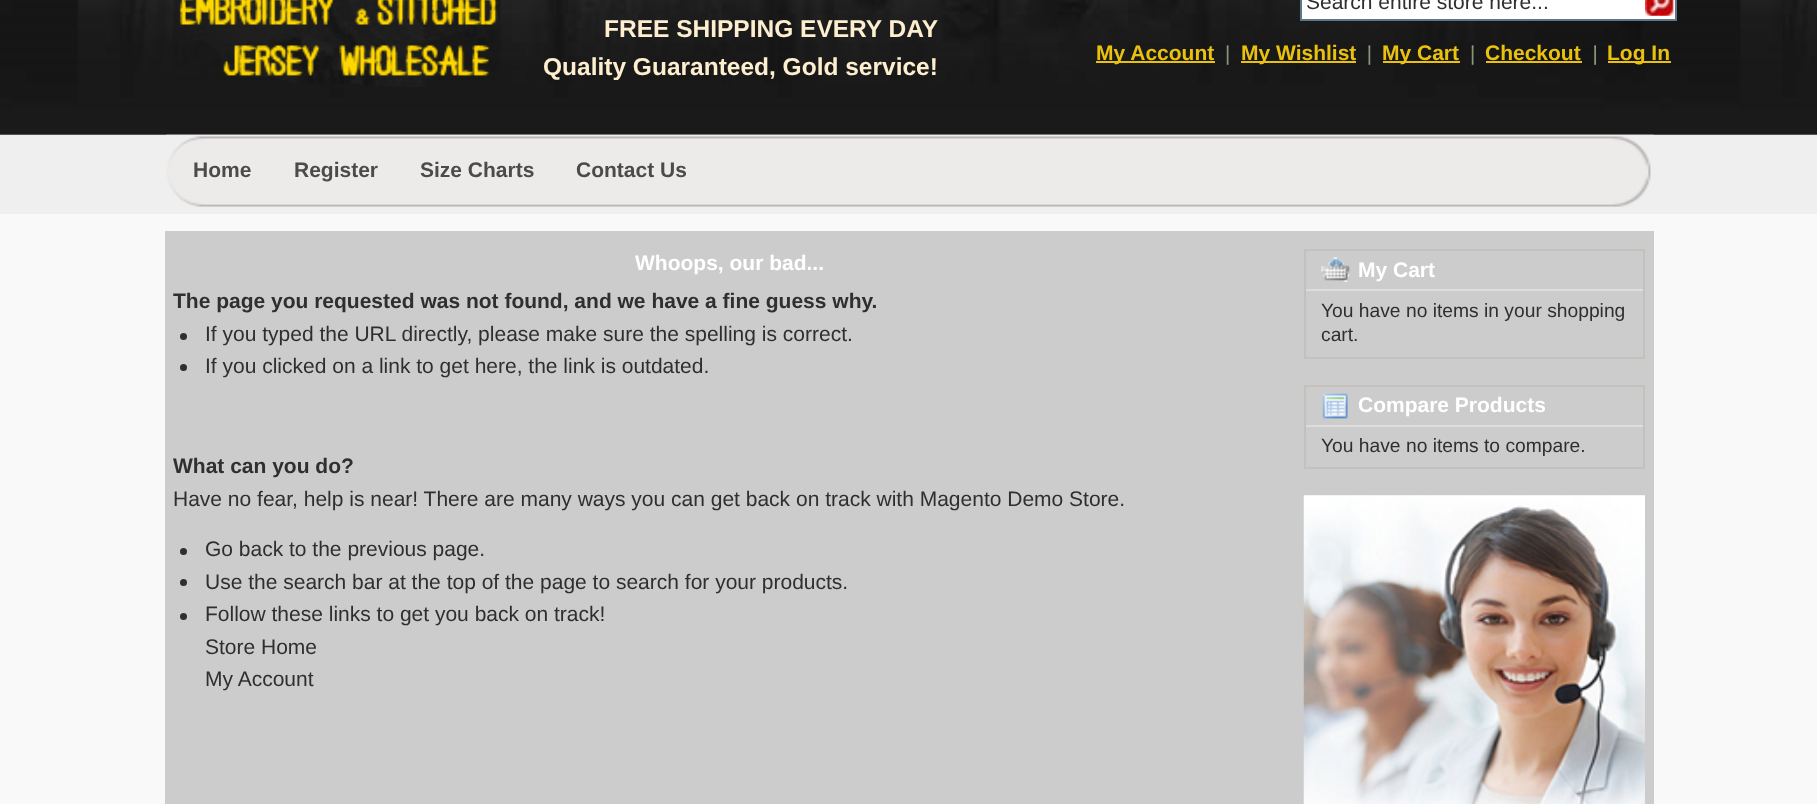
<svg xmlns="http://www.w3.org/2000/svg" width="1817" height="804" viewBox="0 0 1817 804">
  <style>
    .t1 { font: bold 24.5px Liberation Sans; fill: #fdeecf; }
    .t2 { font: 21px Liberation Sans; fill: #2f2f2f; }
    .t3 { font: bold 21px Liberation Sans; fill: #eac20e; }
    .t4 { font: bold 21px Liberation Sans; fill: #4c4b49; }
    .t5 { font: bold 21px Liberation Sans; fill: #fff; }
    .t6 { font: bold 21px Liberation Sans; fill: #2f2f2f; }
    .t7 { font: 19.25px Liberation Sans; fill: #2f2f2f; }
  </style>
  <rect width="100%" height="100%" fill="#f9f9f9"/>
  <image x="0" y="0" width="1817" height="135" href="images/1.png"/>
  <image x="173" y="0" width="328" height="87" href="images/2.png"/>
  <text x="604" y="37" class="t1">FREE SHIPPING EVERY DAY</text>
  <text x="543" y="75" class="t1">Quality Guaranteed, Gold service!</text>
  <rect x="1301" y="-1" width="375" height="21" fill="#fff" stroke="#5c7989" stroke-width="2"/>
  <text x="1306" y="9" class="t2">Search entire store here...</text>
  <image x="1645" y="0" width="30" height="16" href="images/3.png"/>
  <image x="1226" y="45" width="3" height="20" href="images/4.png"/>
  <rect x="1096" y="61" width="119" height="2" fill="#eac20e"/>
  <text x="1096" y="60" class="t3">My Account</text>
  <image x="1368" y="45" width="3" height="20" href="images/5.png"/>
  <rect x="1241" y="61" width="115" height="2" fill="#eac20e"/>
  <text x="1241" y="60" class="t3">My Wishlist</text>
  <image x="1471" y="45" width="3" height="20" href="images/6.png"/>
  <rect x="1383" y="61" width="77" height="2" fill="#eac20e"/>
  <text x="1382" y="60" class="t3">My Cart</text>
  <image x="1594" y="45" width="2" height="20" href="images/7.png"/>
  <text x="1485" y="60" class="t3">Checkout</text>
  <rect x="1486" y="61" width="96" height="2" fill="#eac20e"/>
  <rect x="1608" y="61" width="63" height="2" fill="#eac20e"/>
  <text x="1607" y="60" class="t3">Log In</text>
  <rect x="0" y="135" width="1817" height="79" fill="#efefef"/>
  <image x="166" y="134" width="1488" height="73" href="images/8.png"/>
  <text x="193" y="177" class="t4">Home</text>
  <text x="294" y="177" class="t4">Register</text>
  <text x="420" y="177" class="t4">Size Charts</text>
  <text x="576" y="177" class="t4">Contact Us</text>
  <rect x="165" y="231" width="1489" height="573" fill="#ccc"/>
  <text x="635" y="270" class="t5">Whoops, our bad...</text>
  <text x="173" y="308" class="t6">The page you requested was not found, and we have a fine guess why.</text>
  <circle cx="183.5" cy="336.5" r="3.5" fill="#2f2f2f"/>
  <text x="205" y="341" class="t2">If you typed the URL directly, please make sure the spelling is correct.</text>
  <circle cx="183.5" cy="367.5" r="3.5" fill="#2f2f2f"/>
  <text x="205" y="373" class="t2">If you clicked on a link to get here, the link is outdated.</text>
  <text x="173" y="473" class="t6">What can you do?</text>
  <text x="173" y="506" class="t2">Have no fear, help is near! There are many ways you can get back on track with Magento Demo Store.</text>
  <circle cx="183.5" cy="551.5" r="3.5" fill="#2f2f2f"/>
  <text x="205" y="556" class="t2">Go back</text>
  <text x="289" y="556" class="t2">to the previous page.</text>
  <circle cx="183.5" cy="582.5" r="3.5" fill="#2f2f2f"/>
  <text x="205" y="589" class="t2">Use the search bar at the top of the page to search for your products.</text>
  <circle cx="183.5" cy="616.5" r="3.5" fill="#2f2f2f"/>
  <text x="205" y="621" class="t2">Follow these links to get you back on track!</text>
  <text x="205" y="654" class="t2">Store Home</text>
  <text x="205" y="686" class="t2">My Account</text>
  <rect x="1305" y="250" width="339" height="108" fill="none" stroke="#c4c1bc" stroke-width="2"/>
  <rect x="1306" y="289" width="337" height="2" fill="#ddd"/>
  <image x="1321" y="257" width="29" height="25" href="images/9.png"/>
  <text x="1358" y="277" class="t5">My Cart</text>
  <text x="1321" y="317" class="t7">You have no items in your shopping</text>
  <text x="1321" y="341" class="t7">cart.</text>
  <rect x="1305" y="386" width="339" height="82" fill="none" stroke="#c4c1bc" stroke-width="2"/>
  <rect x="1306" y="425" width="337" height="2" fill="#ddd"/>
  <image x="1322" y="393" width="26" height="26" href="images/10.png"/>
  <text x="1358" y="412" class="t5">Compare Products</text>
  <text x="1321" y="452" class="t7">You have no items to compare.</text>
  <image x="1303" y="495" width="342" height="309" href="images/11.png"/>
</svg>
